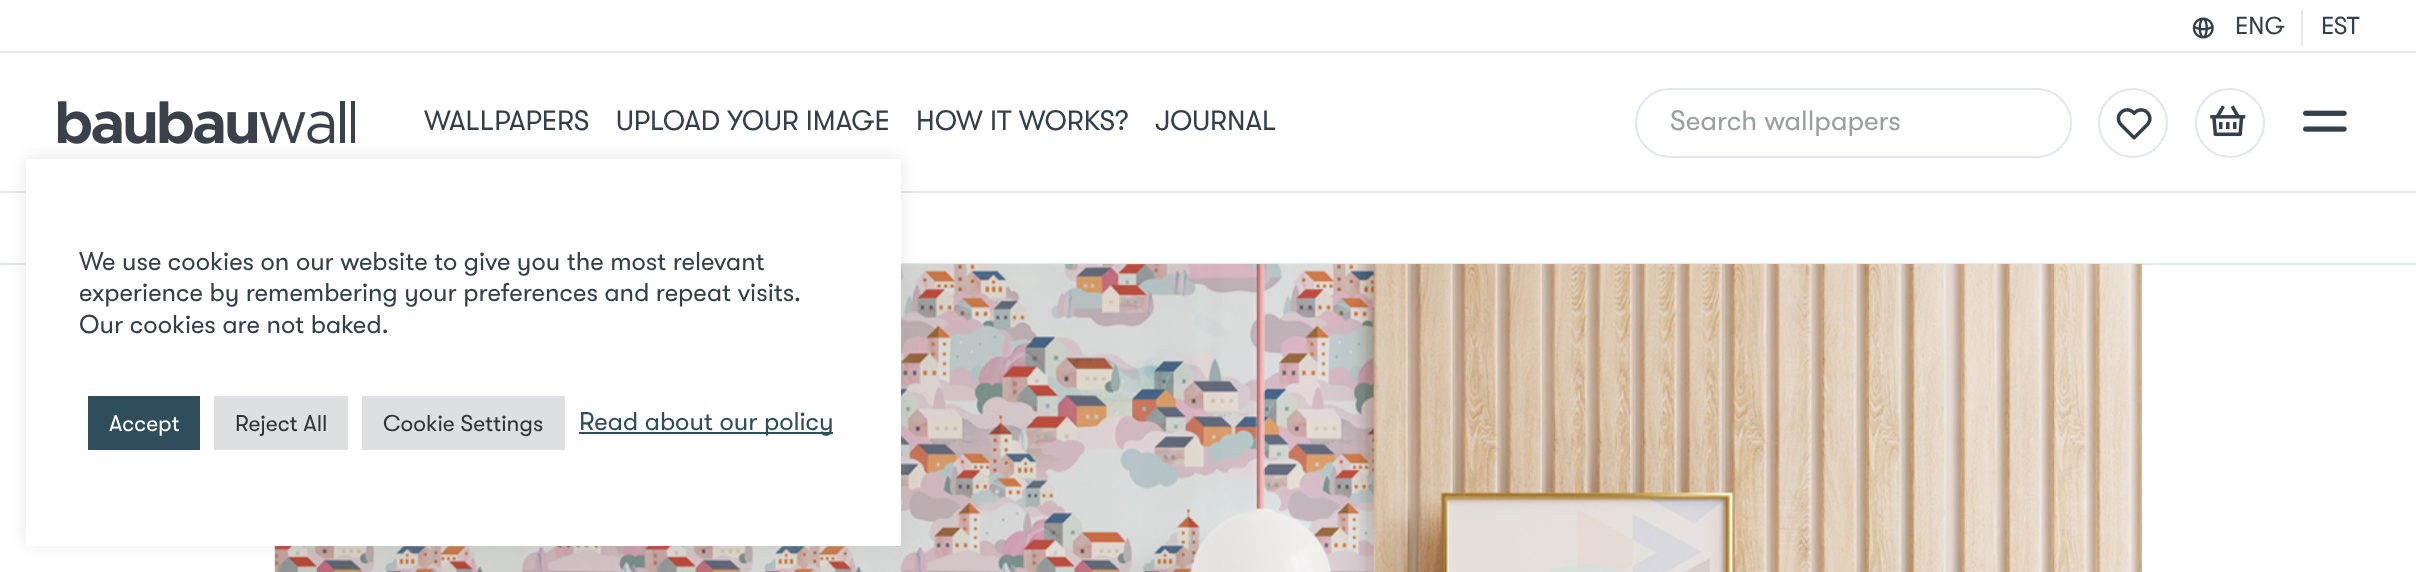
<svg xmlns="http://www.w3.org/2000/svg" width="2416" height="572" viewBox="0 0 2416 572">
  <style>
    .t1 { font: 24.5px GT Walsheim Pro; fill: #353f49; }
    .t2 { font: 28px GT Walsheim Pro; fill: #353f49; }
    .t3 { font: 28px GT Walsheim Pro; fill: #9a9fa4; }
    .t4 { font: 25.7px GT Walsheim Pro; fill: #353f49; }
    .t5 { font: 22.75px GT Walsheim Pro; fill: #fff; }
    .t6 { font: 22.75px GT Walsheim Pro; fill: #333; }
    .t7 { font: 25.7px GT Walsheim Pro; fill: #2d4e5a; }
  </style>
  <rect width="100%" height="100%" fill="#fff"/>
  <rect x="0" y="51" width="2416" height="2" fill="#e5e9ef"/>
  <image x="2192" y="17" width="22" height="22" href="images/1.png"/>
  <rect x="2301" y="9" width="2" height="37" fill="#e1e7ed"/>
  <text x="2235" y="34" class="t1">ENG</text>
  <text x="2321" y="34" class="t1">EST</text>
  <rect x="0" y="191" width="2416" height="2" fill="#e5e9ef"/>
  <image x="58" y="101" width="297" height="43" href="images/2.png"/>
  <text x="424" y="130" class="t2">WALLPAPERS</text>
  <text x="616" y="130" class="t2">UPLOAD YOUR IMAGE</text>
  <text x="916" y="130" class="t2">HOW IT WORKS?</text>
  <text x="1155" y="130" class="t2">JOURNAL</text>
  <rect x="1636" y="89" width="435" height="68" rx="34" fill="none" stroke="#e1e7ed" stroke-width="2"/>
  <text x="1670" y="130" class="t3">Search wallpapers</text>
  <circle cx="2133" cy="123" r="34" fill="none" stroke="#e1e7ed" stroke-width="2"/>
  <image x="2116" y="108" width="36" height="32" href="images/3.png"/>
  <circle cx="2230" cy="123" r="34" fill="none" stroke="#e1e7ed" stroke-width="2"/>
  <image x="2210" y="105" width="36" height="32" href="images/4.png"/>
  <image x="2303" y="110" width="44" height="22" href="images/5.png"/>
  <rect x="0" y="263" width="2416" height="2" fill="#e1e7ed"/>
  <image x="274" y="264" width="1868" height="308" href="images/6.png"/>
  <rect x="26" y="158" width="875" height="386" fill="#acabab4d" filter="blur(9px)"/>
  <rect x="26" y="159" width="875" height="387" fill="#fff"/>
  <text x="79" y="270" class="t4">We use cookies on our website to give you the most relevant</text>
  <text x="79" y="301" class="t4">experience by remembering your preferences and repeat visits.</text>
  <text x="79" y="333" class="t4">Our cookies are not baked.</text>
  <rect x="88" y="396" width="112" height="54" fill="#2d4e5a"/>
  <text x="109" y="431" class="t5">Accept</text>
  <rect x="214" y="396" width="134" height="54" fill="#dedfe0"/>
  <text x="235" y="431" class="t6">Reject All</text>
  <rect x="362" y="396" width="203" height="54" fill="#dedfe0"/>
  <text x="383" y="431" class="t6">Cookie Settings</text>
  <rect x="579" y="432" width="254" height="2" fill="#2d4e5a"/>
  <text x="579" y="430" class="t7">Read about our policy</text>
</svg>
